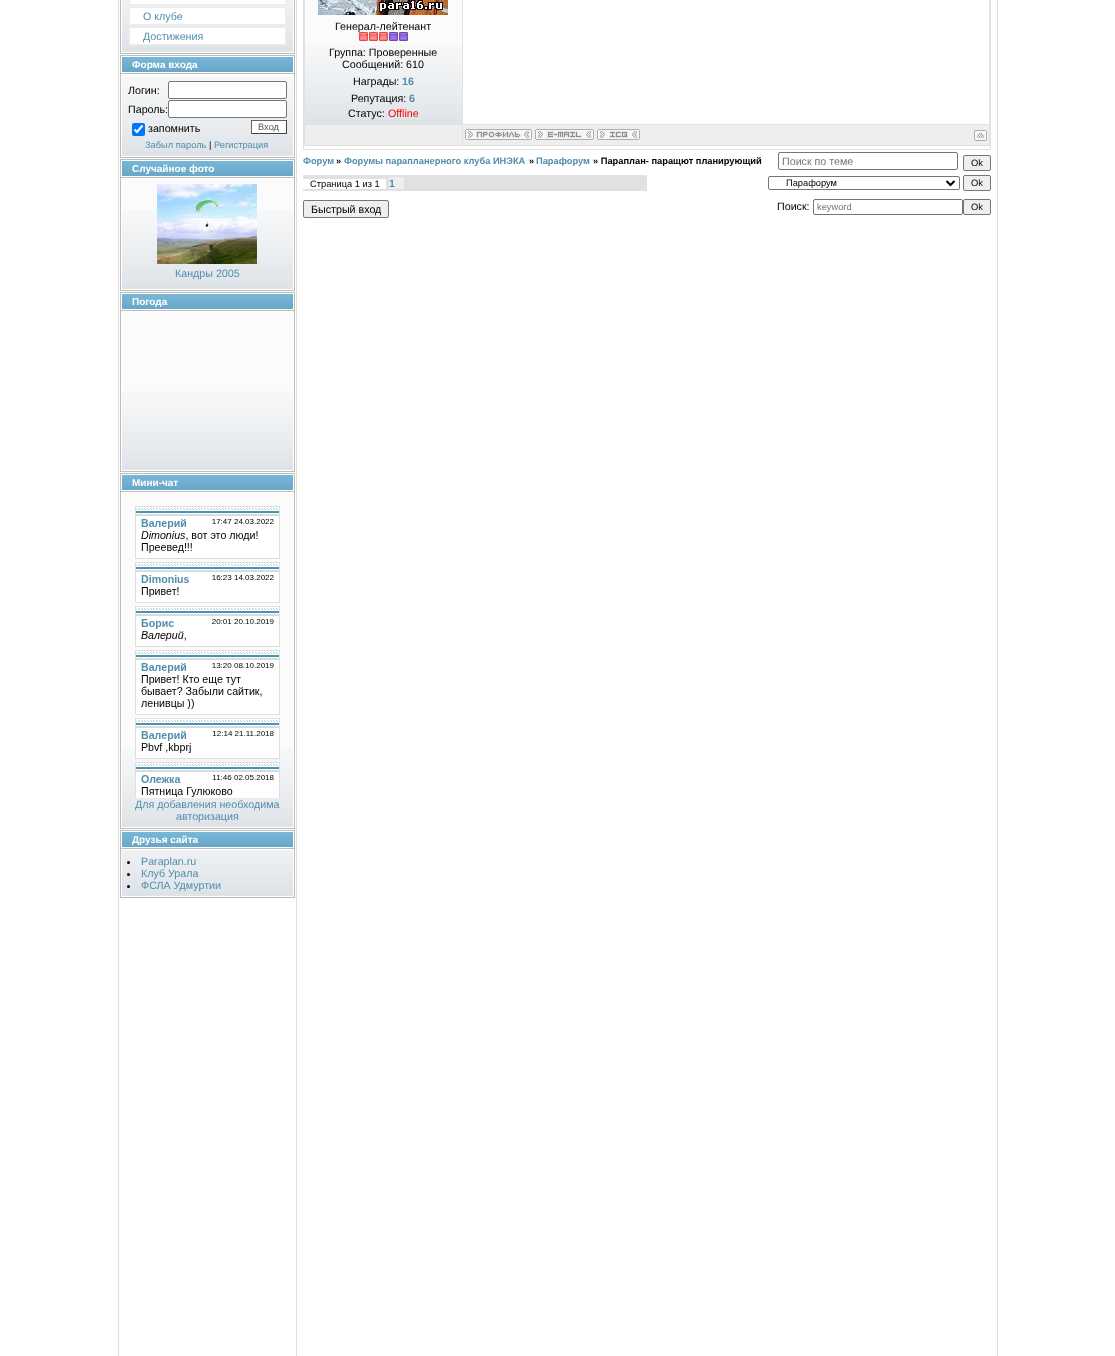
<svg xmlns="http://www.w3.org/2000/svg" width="1115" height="1356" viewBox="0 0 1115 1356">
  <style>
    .t1 { font: 10.7px Liberation Sans; fill: #518ead; }
    .t2 { font: bold 10px Liberation Sans; fill: #fff; }
    .t3 { font: 10.7px Liberation Sans; fill: #000; }
    .t4 { font: 9.3px Liberation Sans; fill: #575757; }
    .t5 { font: 9.3px Liberation Sans; fill: #518ead; }
    .t6 { font: 9.3px Liberation Sans; fill: #000; }
    .t7 { font: bold 10.7px Liberation Sans; fill: #518ead; }
    .t8 { font: 10.7px Liberation Sans; fill: #f00; }
    .t9 { font: bold 9.3px Liberation Sans; fill: #518ead; }
    .t10 { font: bold 9.3px Liberation Sans; fill: #000; }
    .t11 { font: 10.7px Liberation Sans; fill: #757575; }
    .t12 { font: 9.3px Liberation Sans; fill: #757575; }
  </style>
  <rect width="100%" height="100%" fill="#fff"/>
  <rect x="997" y="0" width="1" height="1356" fill="#dedede"/>
  <rect x="118" y="0" width="1" height="1356" fill="#dedede"/>
  <rect x="120" y="0" width="175" height="54" fill="#bcbcbc"/>
  <image x="122" y="0" width="171" height="52" href="images/1.png"/>
  <rect x="121.5" y="-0.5" width="172" height="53" fill="none" stroke="#fff"/>
  <rect x="129.5" y="-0.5" width="156" height="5" fill="#fff" stroke="#ededed"/>
  <rect x="129.5" y="7.5" width="156" height="17" fill="#fff" stroke="#ededed"/>
  <text x="143" y="20" class="t1">О клубе</text>
  <rect x="129.5" y="27.5" width="156" height="17" fill="#fff" stroke="#ededed"/>
  <text x="143" y="40" class="t1">Достижения</text>
  <rect x="120" y="55" width="175" height="103" fill="#bcbcbc"/>
  <image x="122" y="57" width="171" height="15" href="images/2.png"/>
  <rect x="121.5" y="56.5" width="172" height="16" fill="none" stroke="#fff"/>
  <text x="132" y="68" class="t2">Форма входа</text>
  <rect x="122" y="75" width="171" height="2" fill="#fbfbfc"/>
  <image x="122" y="77" width="171" height="79" href="images/3.png"/>
  <rect x="121.5" y="74.5" width="172" height="82" fill="none" stroke="#fff"/>
  <text x="128" y="94" class="t3">Логин:</text>
  <rect x="168.5" y="81.5" width="118" height="17" rx="1.5" fill="#fff" stroke="#767676"/>
  <text x="128" y="113" class="t3">Пароль:</text>
  <rect x="168.5" y="100.5" width="118" height="17" rx="1.5" fill="#fff" stroke="#767676"/>
  <rect x="132" y="123" width="13" height="13" rx="2" fill="#0075ff"/>
  <path d="M134.5 129.5L137 132L142.5 125.5" fill="none" stroke="#fff" stroke-width="2.1"/>
  <text x="148" y="132" class="t3">запомнить</text>
  <rect x="252" y="121" width="34" height="12" fill="#fff"/>
  <rect x="251" y="120" width="36" height="1" fill="#636363"/>
  <rect x="286" y="120" width="1" height="14" fill="#424242"/>
  <rect x="251" y="133" width="36" height="1" fill="#424242"/>
  <rect x="251" y="120" width="1" height="14" fill="#636363"/>
  <text x="258" y="130" class="t4">Вход</text>
  <text x="145" y="148" class="t5">Забыл пароль</text>
  <text x="209" y="148" class="t6">|</text>
  <text x="214" y="148" class="t5">Регистрация</text>
  <rect x="120" y="159" width="175" height="132" fill="#bcbcbc"/>
  <image x="122" y="161" width="171" height="15" href="images/2.png"/>
  <rect x="121.5" y="160.5" width="172" height="16" fill="none" stroke="#fff"/>
  <text x="132" y="172" class="t2">Случайное фото</text>
  <rect x="122" y="179" width="171" height="31" fill="#fbfbfc"/>
  <image x="122" y="210" width="171" height="79" href="images/3.png"/>
  <rect x="121.5" y="178.5" width="172" height="111" fill="none" stroke="#fff"/>
  <image x="157" y="184" width="100" height="80" href="images/4.png"/>
  <text x="175" y="277" class="t1">Кандры 2005</text>
  <rect x="120" y="292" width="175" height="180" fill="#bcbcbc"/>
  <image x="122" y="294" width="171" height="15" href="images/2.png"/>
  <rect x="121.5" y="293.5" width="172" height="16" fill="none" stroke="#fff"/>
  <text x="132" y="305" class="t2">Погода</text>
  <rect x="122" y="312" width="171" height="79" fill="#fbfbfc"/>
  <image x="122" y="391" width="171" height="79" href="images/3.png"/>
  <rect x="121.5" y="311.5" width="172" height="159" fill="none" stroke="#fff"/>
  <rect x="120" y="473" width="175" height="356" fill="#bcbcbc"/>
  <image x="122" y="475" width="171" height="15" href="images/2.png"/>
  <rect x="121.5" y="474.5" width="172" height="16" fill="none" stroke="#fff"/>
  <text x="132" y="486" class="t2">Мини-чат</text>
  <rect x="122" y="493" width="171" height="255" fill="#fbfbfc"/>
  <image x="122" y="748" width="171" height="79" href="images/3.png"/>
  <rect x="121.5" y="492.5" width="172" height="335" fill="none" stroke="#fff"/>
  <image x="135" y="506" width="145" height="292" href="images/5.png"/>
  <text x="135" y="808" class="t1">Для добавления необходима</text>
  <text x="176" y="820" class="t1">авторизация</text>
  <rect x="120" y="830" width="175" height="68" fill="#bcbcbc"/>
  <image x="122" y="832" width="171" height="15" href="images/2.png"/>
  <rect x="121.5" y="831.5" width="172" height="16" fill="none" stroke="#fff"/>
  <text x="132" y="843" class="t2">Друзья сайта</text>
  <image x="122" y="850" width="171" height="46" href="images/6.png"/>
  <rect x="121.5" y="849.5" width="172" height="47" fill="none" stroke="#fff"/>
  <circle cx="128.5" cy="862.5" r="1.5" fill="#000"/>
  <text x="141" y="865" class="t1">Paraplan.ru</text>
  <circle cx="128.5" cy="874.5" r="1.5" fill="#000"/>
  <text x="141" y="877" class="t1">Клуб Урала</text>
  <circle cx="128.5" cy="886.5" r="1.5" fill="#000"/>
  <text x="141" y="889" class="t1">ФСЛА Удмуртии</text>
  <rect x="296" y="0" width="1" height="1356" fill="#dedede"/>
  <rect x="303" y="0" width="688" height="150" fill="#e1e1e1"/>
  <rect x="304" y="146" width="686" height="3" fill="#fff"/>
  <rect x="305" y="0" width="157" height="45" fill="#fbfbfc"/>
  <image x="305" y="45" width="157" height="79" href="images/7.png"/>
  <image x="318" y="0" width="130" height="15" href="images/8.png"/>
  <text x="335" y="30" class="t3">Генерал-лейтенант</text>
  <image x="359" y="32" width="49" height="9" href="images/9.png"/>
  <text x="329" y="56" class="t3">Группа: Проверенные</text>
  <text x="342" y="68" class="t3">Сообщений: 610</text>
  <text x="353" y="85" class="t3">Награды:</text>
  <text x="402" y="85" class="t7">16</text>
  <text x="351" y="102" class="t3">Репутация:</text>
  <text x="409" y="102" class="t7">6</text>
  <text x="348" y="117" class="t3">Статус:</text>
  <text x="388" y="117" class="t8">Offline</text>
  <rect x="463" y="0" width="526" height="124" fill="#fff"/>
  <rect x="305" y="125" width="157" height="20" fill="#eee"/>
  <rect x="463" y="125" width="526" height="20" fill="#eee"/>
  <image x="465" y="129" width="67" height="11" href="images/10.png"/>
  <image x="535" y="129" width="59" height="11" href="images/11.png"/>
  <image x="597" y="129" width="43" height="11" href="images/12.png"/>
  <image x="974" y="130" width="13" height="11" href="images/13.png"/>
  <text x="303" y="164" class="t9">Форум</text>
  <text x="336" y="164" class="t10">»</text>
  <text x="344" y="164" class="t9">Форумы парапланерного клуба ИНЭКА</text>
  <text x="529" y="164" class="t10">»</text>
  <text x="536" y="164" class="t9">Парафорум</text>
  <text x="593" y="164" class="t10">» Параплан- паращют планирующий</text>
  <rect x="778.5" y="152.5" width="179" height="17" rx="1.5" fill="none" stroke="#767676"/>
  <text x="782" y="165" class="t11">Поиск по теме</text>
  <rect x="963.5" y="155.5" width="27" height="15" rx="1.5" fill="#efefef" stroke="#767676"/>
  <text x="971" y="166" class="t6">Ok</text>
  <rect x="303" y="175" width="344" height="16" fill="#e1e1e1"/>
  <rect x="303" y="179" width="83" height="10" fill="#fff"/>
  <text x="310" y="187" class="t6">Страница 1 из 1</text>
  <rect x="389" y="177" width="15" height="12" fill="#eee"/>
  <text x="389" y="187" class="t7">1</text>
  <rect x="768.5" y="176.5" width="191" height="13" rx="1.5" fill="none" stroke="#767676"/>
  <path d="M946.5 181L950.5 185L954.5 181" fill="none" stroke="#000" stroke-width="2"/>
  <text x="786" y="186" class="t6">Парафорум</text>
  <rect x="963.5" y="175.5" width="27" height="15" rx="1.5" fill="#efefef" stroke="#767676"/>
  <text x="971" y="186" class="t6">Ok</text>
  <rect x="303.5" y="200.5" width="85" height="17" rx="1.5" fill="#efefef" stroke="#767676"/>
  <text x="311" y="213" class="t3">Быстрый вход</text>
  <text x="777" y="210" class="t3">Поиск:</text>
  <rect x="813.5" y="199.5" width="149" height="15" rx="1.5" fill="none" stroke="#767676"/>
  <text x="817" y="210" class="t12">keyword</text>
  <rect x="963.5" y="199.5" width="27" height="15" rx="1.5" fill="#efefef" stroke="#767676"/>
  <text x="971" y="210" class="t6">Ok</text>
</svg>
